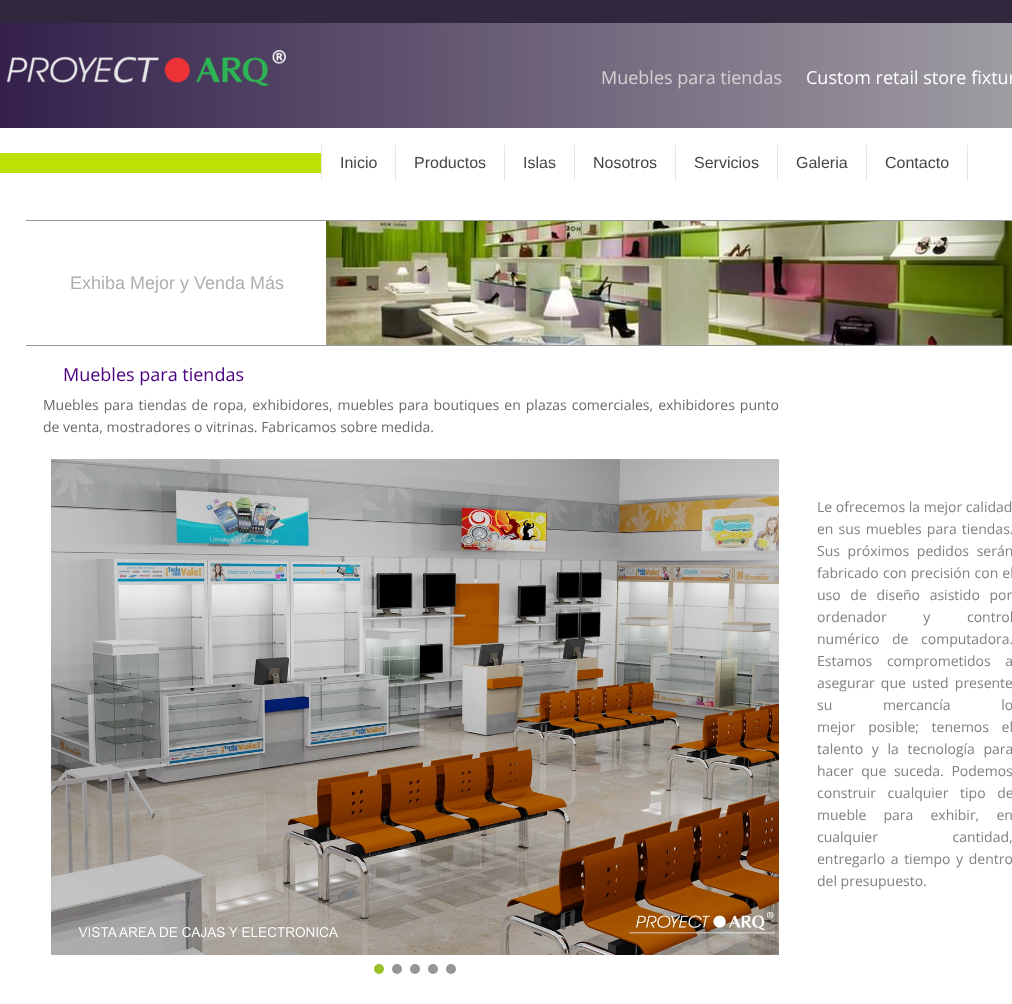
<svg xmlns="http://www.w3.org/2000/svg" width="1012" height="1004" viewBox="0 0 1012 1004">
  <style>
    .t1 { font: 18px Open Sans; fill: #d3d3d3; }
    .t2 { font: 18px Open Sans; fill: #fff; }
    .t3 { font: 16px Liberation Sans; fill: #454544; }
    .t4 { font: 18px Liberation Sans; fill: #b0afaf; }
    .t5 { font: 18px Open Sans; fill: #4b0082; }
    .t6 { font: 14px Open Sans; fill: #696969; }
    .t7 { font: 14px Open Sans; fill: #808080; }
  </style>
  <defs>
    <linearGradient id="g1" gradientUnits="userSpaceOnUse" x1="600" y1="0" x2="600" y2="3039"><stop offset="0" stop-color="#30293d"/><stop offset="1" stop-color="#221430"/></linearGradient>
    <linearGradient id="g2" gradientUnits="userSpaceOnUse" x1="-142" y1="76" x2="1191" y2="75"><stop offset="0" stop-color="#250f3f"/><stop offset="1" stop-color="#b2b2b2"/></linearGradient>
  </defs>
  <rect width="100%" height="100%" fill="#fff"/>
  <rect x="0" y="0" width="1012" height="23" fill="url(#g1)"/>
  <rect x="0" y="23" width="1012" height="105" fill="url(#g2)"/>
  <image x="7" y="50" width="279" height="36" href="images/1.png"/>
  <text x="601" y="84" class="t1">Muebles para tiendas</text>
  <text x="806" y="84" class="t2">Custom retail store fixtur</text>
  <rect x="0" y="153" width="321" height="20" fill="#bfe004"/>
  <rect x="321" y="145" width="1" height="36" fill="#e6e6e6"/>
  <rect x="395" y="145" width="1" height="36" fill="#e6e6e6"/>
  <text x="340" y="168" class="t3">Inicio</text>
  <rect x="504" y="145" width="1" height="36" fill="#e6e6e6"/>
  <text x="414" y="168" class="t3">Productos</text>
  <rect x="574" y="145" width="1" height="36" fill="#e6e6e6"/>
  <text x="523" y="168" class="t3">Islas</text>
  <rect x="675" y="145" width="1" height="36" fill="#e6e6e6"/>
  <text x="593" y="168" class="t3">Nosotros</text>
  <rect x="777" y="145" width="1" height="36" fill="#e6e6e6"/>
  <text x="694" y="168" class="t3">Servicios</text>
  <rect x="866" y="145" width="1" height="36" fill="#e6e6e6"/>
  <text x="796" y="168" class="t3">Galeria</text>
  <rect x="967" y="145" width="1" height="36" fill="#e6e6e6"/>
  <text x="885" y="168" class="t3">Contacto</text>
  <rect x="26" y="220" width="986" height="1" fill="#999"/>
  <text x="70" y="289" class="t4">Exhiba Mejor y Venda Más</text>
  <image x="326" y="221" width="686" height="124" href="images/2.png"/>
  <rect x="26" y="345" width="986" height="1" fill="#999"/>
  <text x="63" y="381" class="t5">Muebles para tiendas</text>
  <text x="43" y="410" word-spacing="1.4" class="t6">Muebles para tiendas de ropa, exhibidores, muebles para boutiques en plazas comerciales, exhibidores punto</text>
  <text x="43" y="432" class="t6">de venta, mostradores o vitrinas. Fabricamos sobre medida.</text>
  <image x="51" y="459" width="728" height="496" href="images/3.png"/>
  <circle cx="379" cy="969" r="5" fill="#98c22a"/>
  <circle cx="397" cy="969" r="5" fill="#969696"/>
  <circle cx="415" cy="969" r="5" fill="#969696"/>
  <circle cx="433" cy="969" r="5" fill="#969696"/>
  <circle cx="451" cy="969" r="5" fill="#969696"/>
  <text x="817" y="512" class="t7">Le ofrecemos la mejor calidad</text>
  <text x="817" y="534" word-spacing="1.5" class="t7">en sus muebles para tiendas.</text>
  <text x="817" y="556" word-spacing="4" class="t7">Sus próximos pedidos serán</text>
  <text x="817" y="578" word-spacing="0.5" class="t7">fabricado con precisión con el</text>
  <text x="817" y="600" word-spacing="6" class="t7">uso de diseño asistido por</text>
  <text x="817" y="622" word-spacing="33" class="t7">ordenador y control</text>
  <text x="817" y="644" word-spacing="9" class="t7">numérico de computadora.</text>
  <text x="817" y="666" word-spacing="11" class="t7">Estamos comprometidos a</text>
  <text x="817" y="688" word-spacing="2.5" class="t7">asegurar que usted presente</text>
  <text x="817" y="710" word-spacing="47" class="t7">su mercancía lo</text>
  <text x="817" y="732" word-spacing="9" class="t7">mejor posible; tenemos el</text>
  <text x="817" y="754" word-spacing="5" class="t7">talento y la tecnología para</text>
  <text x="817" y="776" word-spacing="4" class="t7">hacer que suceda. Podemos</text>
  <text x="817" y="798" word-spacing="8" class="t7">construir cualquier tipo de</text>
  <text x="817" y="820" word-spacing="13.5" class="t7">mueble para exhibir, en</text>
  <text x="817" y="842" word-spacing="71" class="t7">cualquier cantidad,</text>
  <text x="817" y="864" word-spacing="2" class="t7">entregarlo a tiempo y dentro</text>
  <text x="817" y="886" class="t7">del presupuesto.</text>
</svg>
